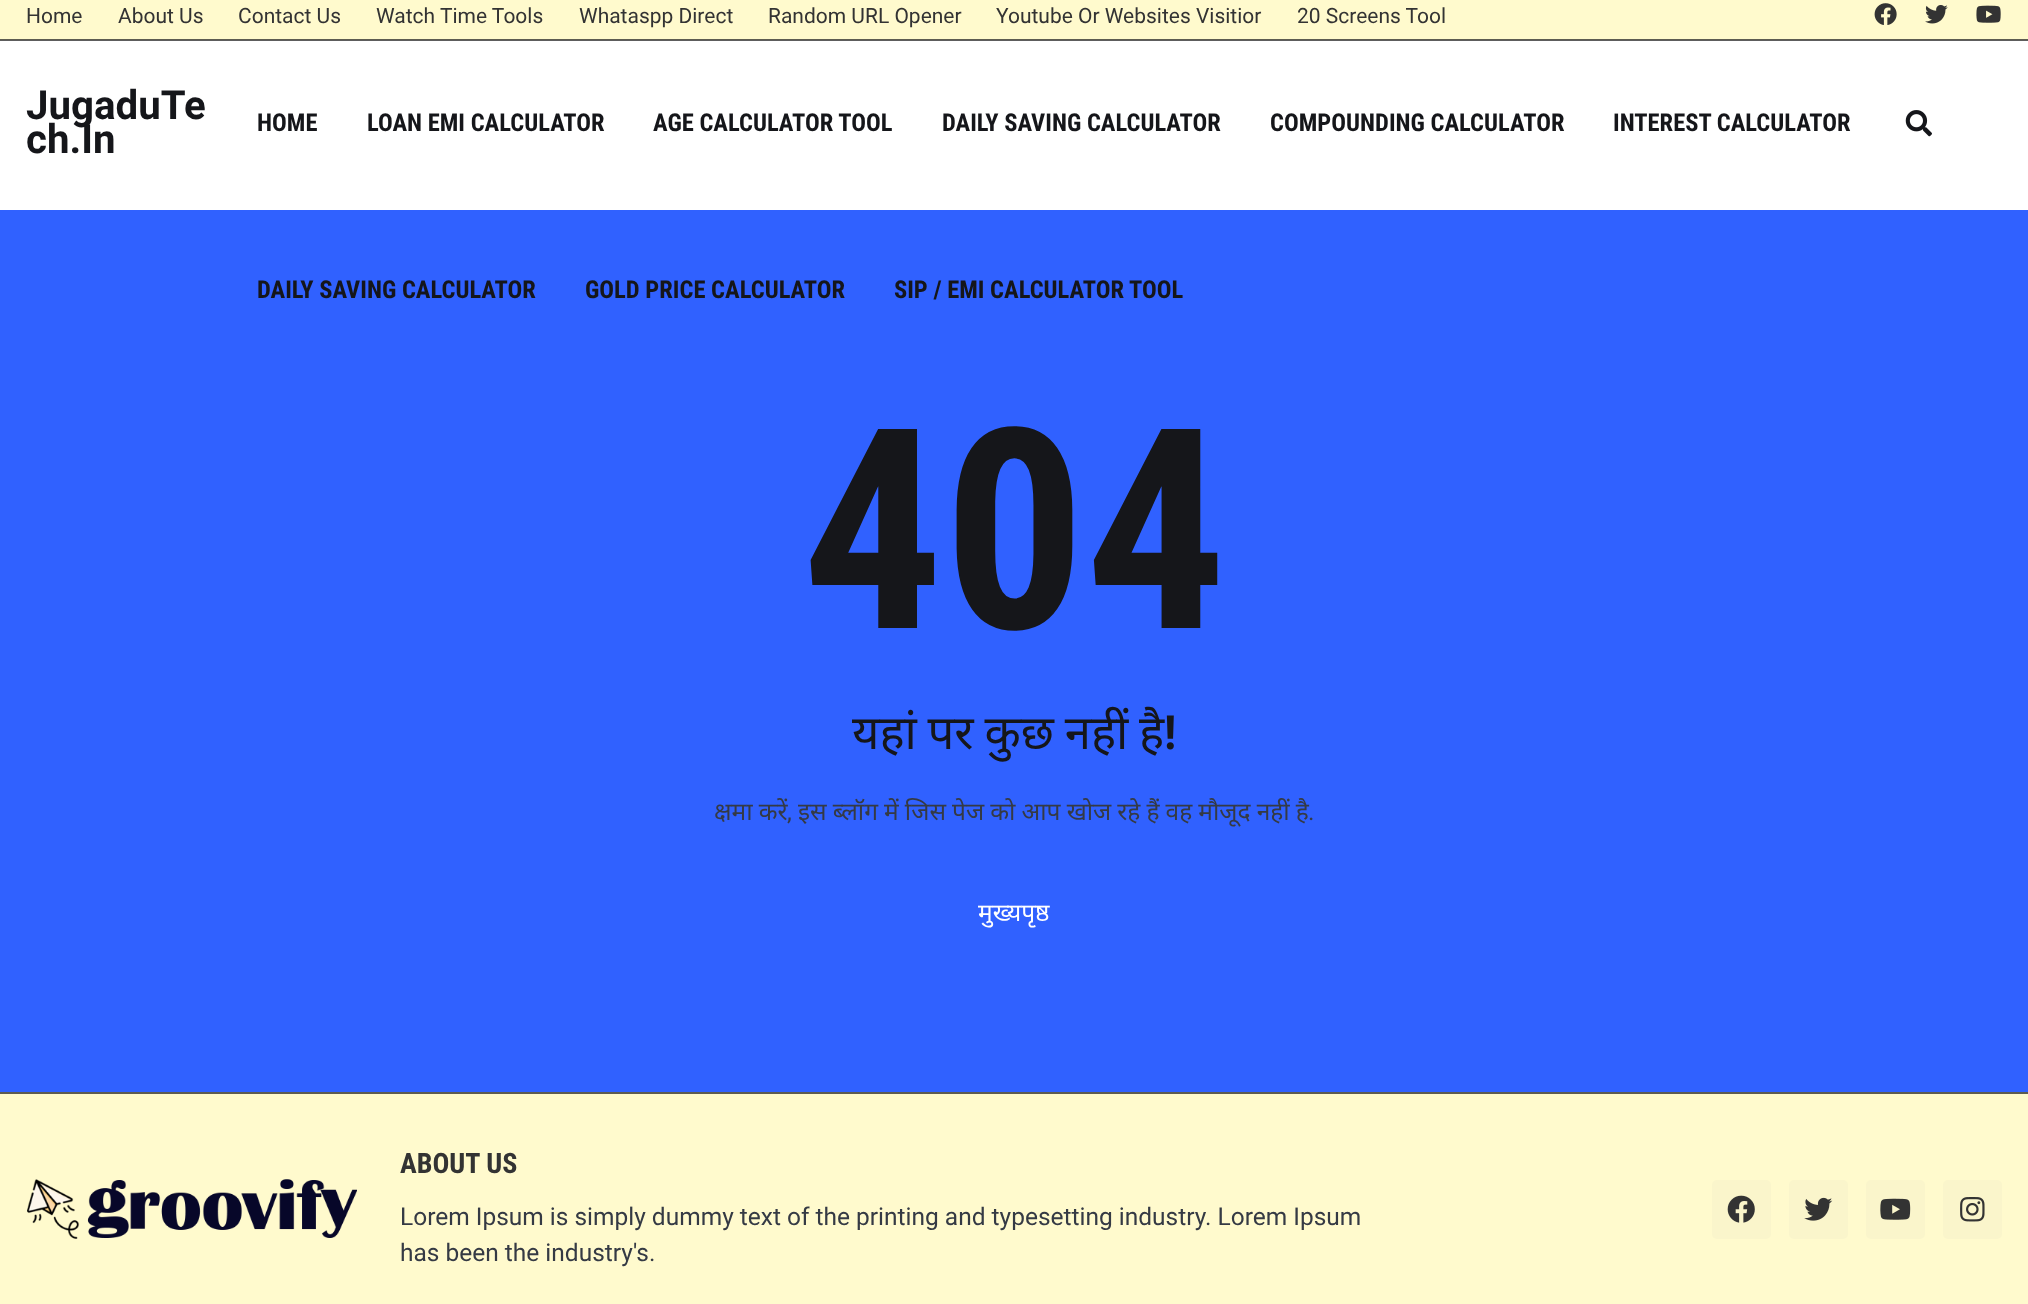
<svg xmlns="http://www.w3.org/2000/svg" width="2028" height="1304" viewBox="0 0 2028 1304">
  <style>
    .t1 { font: 21px Roboto; fill: #333; }
    .t2 { font: bold 40.25px Roboto; fill: #15161a; }
    .t3 { font: bold 24.5px Roboto Condensed; fill: #15161a; }
    .t4 { font: bold 280px Roboto Condensed; fill: #15161a; }
    .t5 { font: 47.25px Noto Sans; fill: #15161a; }
    .t6 { font: bold 47.25px Roboto Condensed; fill: #15161a; }
    .t7 { font: 24.5px Noto Sans; fill: #353a44; }
    .t8 { font: 24.5px Roboto; fill: #353a44; }
    .t9 { font: 24.5px Noto Sans; fill: #fff; }
    .t10 { font: bold 28px Roboto Condensed; fill: #333; }
  </style>
  <rect width="100%" height="100%" fill="#3061ff"/>
  <rect x="0" y="0" width="2028" height="39" fill="#fffacd"/>
  <rect x="0" y="39" width="2028" height="1" fill="#5d5c51"/>
  <text x="26" y="23" class="t1">Home</text>
  <text x="118" y="23" class="t1">About Us</text>
  <text x="238" y="23" class="t1">Contact Us</text>
  <text x="376" y="23" class="t1">Watch Time Tools</text>
  <text x="579" y="23" class="t1">Whataspp Direct</text>
  <text x="768" y="23" class="t1">Random URL Opener</text>
  <text x="996" y="23" class="t1">Youtube Or Websites Visitior</text>
  <text x="1297" y="23" class="t1">20 Screens Tool</text>
  <image x="1874" y="3" width="23" height="22" href="images/1.png"/>
  <image x="1925" y="5" width="23" height="19" href="images/2.png"/>
  <image x="1976" y="5" width="25" height="18" href="images/3.png"/>
  <rect x="0" y="41" width="2028" height="169" fill="#fff"/>
  <rect x="0" y="40" width="2028" height="1" fill="#5d5d5d"/>
  <text x="26" y="119" class="t2">JugaduTe</text>
  <text x="26" y="153" class="t2">ch.In</text>
  <text x="257" y="131" class="t3">HOME</text>
  <text x="367" y="131" class="t3">LOAN EMI CALCULATOR</text>
  <text x="653" y="131" class="t3">AGE CALCULATOR TOOL</text>
  <text x="942" y="131" class="t3">DAILY SAVING CALCULATOR</text>
  <text x="1270" y="131" class="t3">COMPOUNDING CALCULATOR</text>
  <text x="1613" y="131" class="t3">INTEREST CALCULATOR</text>
  <text x="257" y="298" class="t3">DAILY SAVING CALCULATOR</text>
  <text x="585" y="298" class="t3">GOLD PRICE CALCULATOR</text>
  <text x="894" y="298" class="t3">SIP / EMI CALCULATOR TOOL</text>
  <image x="1905" y="110" width="27" height="27" href="images/4.png"/>
  <text x="802" y="628" class="t4">404</text>
  <text x="852" y="749" word-spacing="-1.5" class="t5">यहां पर कुछ नहीं है</text>
  <text x="1164" y="749" class="t6">!</text>
  <text x="714" y="820" word-spacing="-0.25" class="t7">क्षमा करें</text>
  <text x="787" y="820" class="t8">,</text>
  <text x="798" y="820" word-spacing="-0.25" class="t7">इस ब्लॉग में जिस पेज को आप खोज रहे हैं वह मौजूद नहीं है</text>
  <text x="1308" y="820" class="t8">.</text>
  <text x="978" y="921" class="t9">मुख्यपृष्ठ</text>
  <rect x="0" y="1094" width="2028" height="210" fill="#fffacd"/>
  <rect x="0" y="1092" width="2028" height="2" fill="#5d5c51"/>
  <image x="27" y="1179" width="330" height="60" href="images/5.png"/>
  <text x="400" y="1173" class="t10">ABOUT US</text>
  <text x="400" y="1225" class="t8">Lorem Ipsum is simply dummy text of the printing and typesetting industry. Lorem Ipsum</text>
  <text x="400" y="1261" class="t8">has been the industry's.</text>
  <rect x="1712" y="1180" width="59" height="59" rx="5" fill="#faf5cb"/>
  <image x="1727" y="1195" width="28" height="28" href="images/6.png"/>
  <rect x="1789" y="1180" width="59" height="59" rx="5" fill="#faf5cb"/>
  <image x="1804" y="1197" width="29" height="24" href="images/7.png"/>
  <rect x="1866" y="1180" width="59" height="59" rx="5" fill="#faf5cb"/>
  <image x="1880" y="1198" width="31" height="22" href="images/8.png"/>
  <rect x="1943" y="1180" width="59" height="59" rx="5" fill="#faf5cb"/>
  <image x="1960" y="1197" width="25" height="25" href="images/9.png"/>
</svg>
